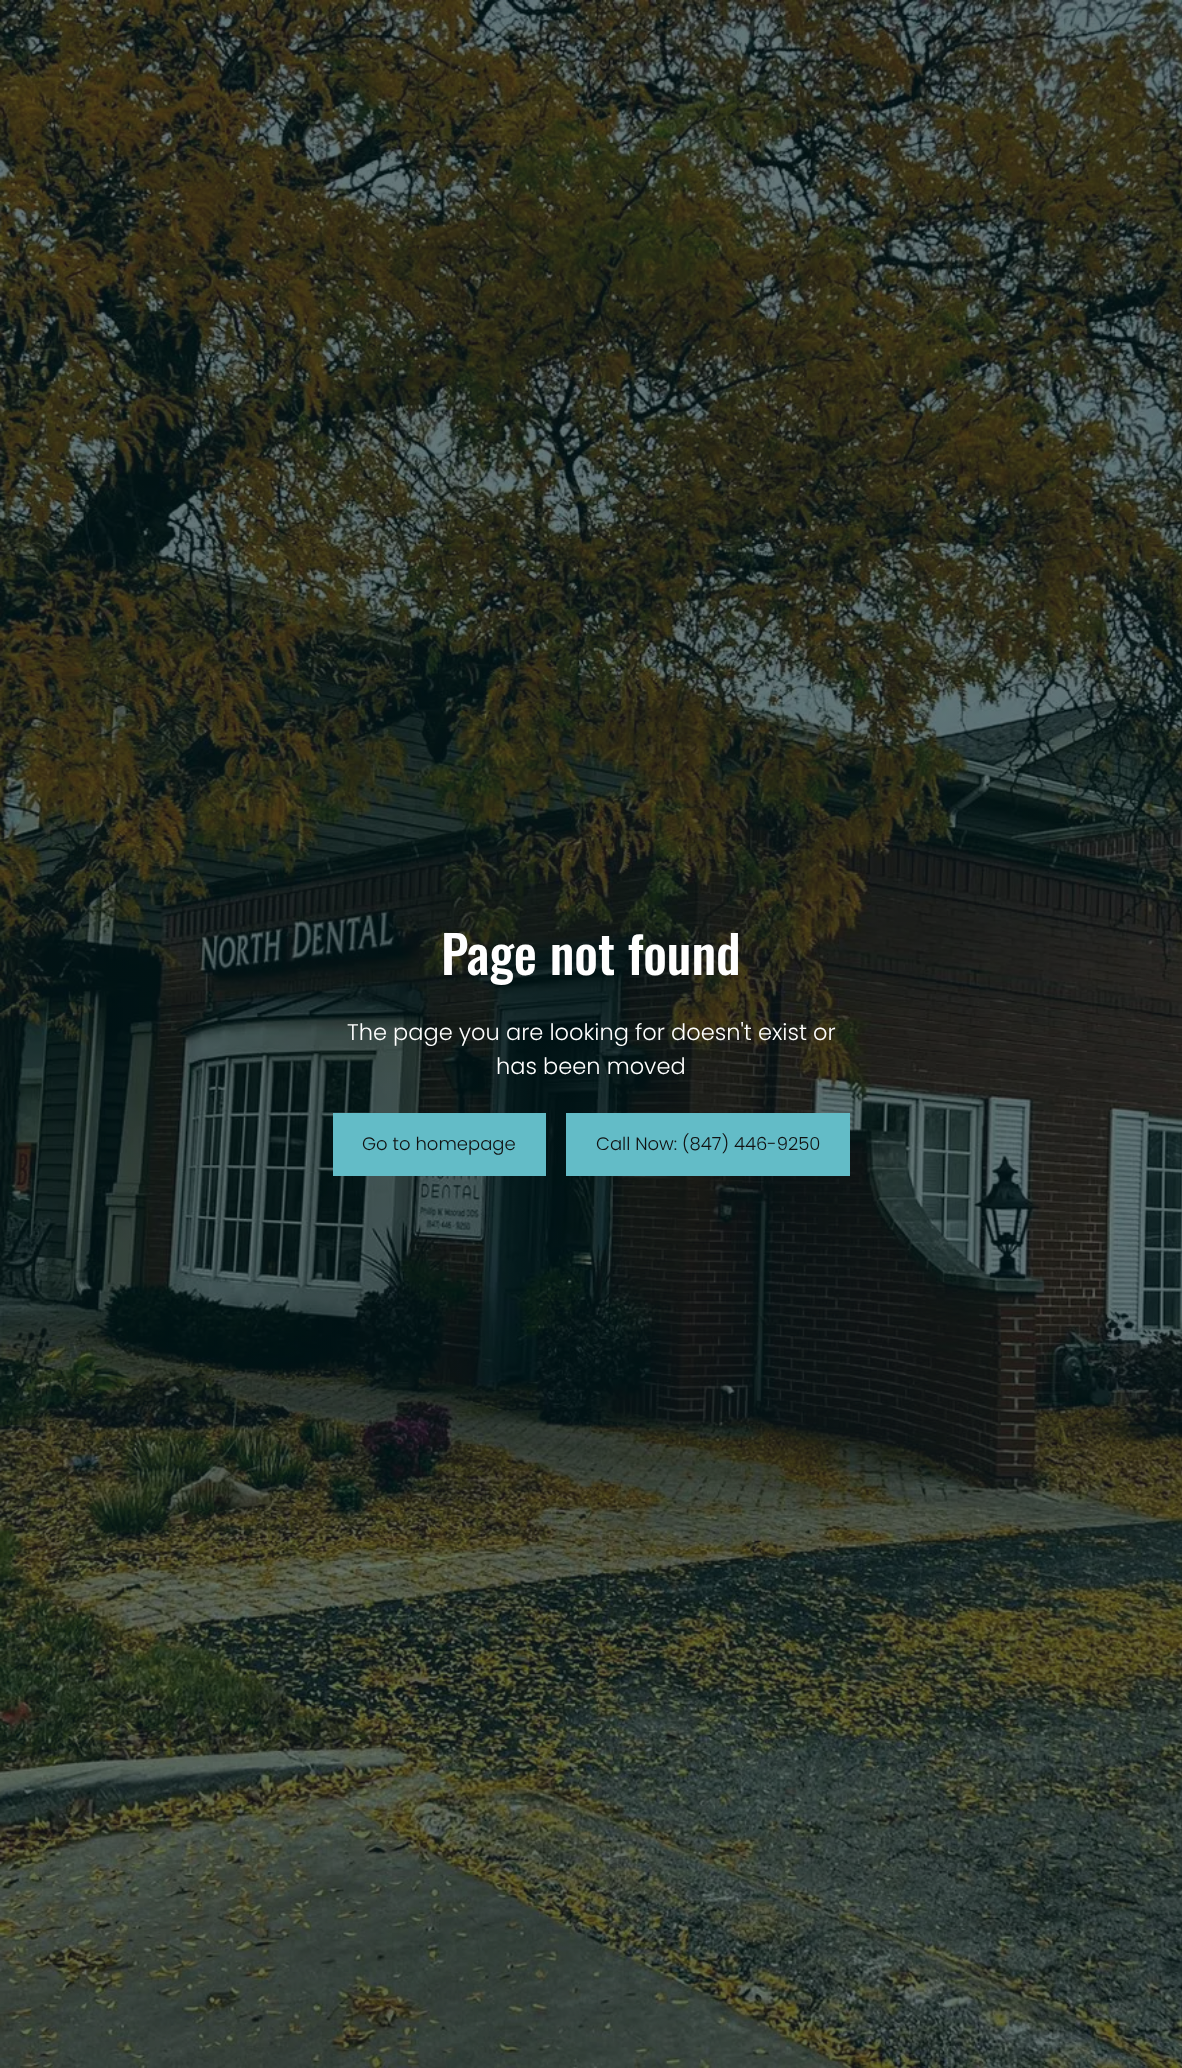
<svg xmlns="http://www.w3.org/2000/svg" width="1182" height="2068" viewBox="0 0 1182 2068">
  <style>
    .t1 { font: 500 52px Oswald; fill: #fff; }
    .t2 { font: 300 22.5px Poppins; fill: #fff; }
    .t3 { font: 300 18px Poppins; fill: #111; }
  </style>
  <rect width="100%" height="100%" fill="#fff"/>
  <image x="0" y="0" width="1182" height="2068" href="images/1.png"/>
  <text x="441" y="975" class="t1">Page not found</text>
  <text x="347" y="1040" class="t2">The page you are looking for doesn't exist or</text>
  <text x="496" y="1074" class="t2">has been moved</text>
  <rect x="333" y="1113" width="213" height="63" fill="#63bcc7"/>
  <text x="362" y="1150" class="t3">Go to homepage</text>
  <rect x="566" y="1113" width="284" height="63" fill="#63bcc7"/>
  <text x="596" y="1150" class="t3">Call Now: (847) 446-9250</text>
</svg>
